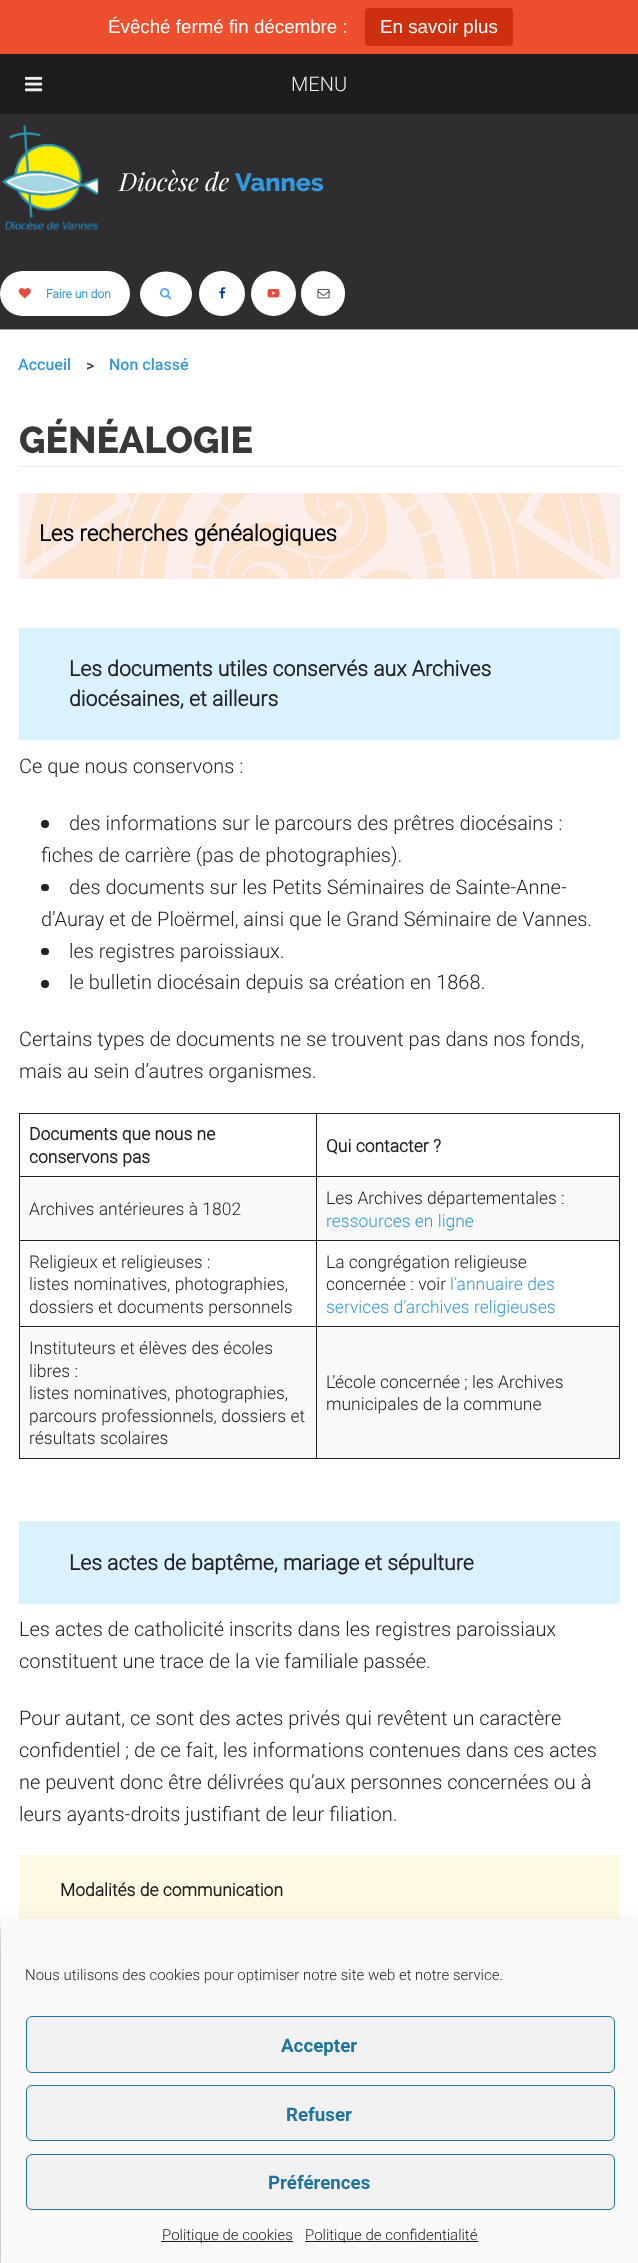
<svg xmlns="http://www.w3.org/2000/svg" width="638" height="2263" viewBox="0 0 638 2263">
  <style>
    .t1 { font: 18.75px Liberation Sans; fill: #fff; }
    .t2 { font: 300 20px Roboto; fill: #eee; }
    .t3 { font: italic 25px Playfair Display; fill: #fff; }
    .t4 { font: 800 25px Raleway; fill: #3498db; }
    .t5 { font: bold 12px Roboto; fill: #3498db; }
    .t6 { font: 500 16px Roboto; fill: #3498db; }
    .t7 { font: 500 16px Roboto; fill: #464846; }
    .t8 { font: 800 37.5px Raleway; fill: #393739; }
    .t9 { font: bold 22.5px Roboto; fill: #000; }
    .t10 { font: bold 21.25px Roboto; fill: #222; }
    .t11 { font: 300 20px Roboto; fill: #222; }
    .t12 { font: bold 17.5px Roboto; fill: #222; }
    .t13 { font: 300 17.5px Roboto; fill: #222; }
    .t14 { font: 300 17.5px Roboto; fill: #3498db; }
    .t15 { font: 300 15px Roboto; fill: #191e23; }
    .t16 { font: bold 18.75px 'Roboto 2'; fill: #21759b; }
  </style>
  <rect width="100%" height="100%" fill="#fff"/>
  <rect x="19" y="493" width="601" height="86" fill="#fceeeb"/>
  <rect x="0" y="0" width="638" height="54" fill="#ed4f2e"/>
  <text x="108" y="33" class="t1">Évêché fermé fin décembre :</text>
  <rect x="365" y="8" width="148" height="38" rx="4" fill="#ce300f"/>
  <text x="380" y="33" class="t1">En savoir plus</text>
  <rect x="0" y="54" width="638" height="60" fill="#1d1d20"/>
  <image x="25" y="76" width="18" height="16" href="images/1.png"/>
  <text x="291" y="91" class="t2">MENU</text>
  <rect x="0" y="329" width="638" height="1" fill="#a6a6a1"/>
  <rect x="0" y="114" width="638" height="215" fill="#2f2d2f"/>
  <image x="1" y="125" width="98" height="105" href="images/2.png"/>
  <text x="119" y="191" class="t3">Diocèse de</text>
  <text x="235" y="191" class="t4">Vannes</text>
  <rect x="0" y="271" width="130" height="45" rx="22.5" fill="#fff"/>
  <image x="18" y="288" width="13" height="11" href="images/3.png"/>
  <text x="46" y="298" class="t5">Faire un don</text>
  <ellipse cx="166" cy="294" rx="26" ry="22.5" fill="#fff"/>
  <image x="160" y="288" width="12" height="12" href="images/4.png"/>
  <rect x="199" y="271" width="46" height="45" rx="22.5" fill="#fff"/>
  <image x="219" y="287" width="7" height="12" href="images/5.png"/>
  <circle cx="273.5" cy="293.5" r="22.5" fill="#fff"/>
  <image x="267" y="289" width="13" height="9" href="images/6.png"/>
  <rect x="301" y="271" width="44" height="45" rx="22" fill="#fff"/>
  <image x="317" y="288" width="13" height="11" href="images/7.png"/>
  <text x="18" y="370" class="t6">Accueil</text>
  <text x="86" y="371" class="t7">&gt;</text>
  <text x="109" y="370" class="t6">Non classé</text>
  <rect x="19" y="466" width="601" height="1" fill="#ebebeb"/>
  <text x="19" y="453" class="t8">GÉNÉALOGIE</text>
  <image x="25" y="493" width="585" height="86" href="images/8.png"/>
  <text x="39" y="541" class="t9">Les recherches généalogiques</text>
  <rect x="19" y="628" width="601" height="112" fill="#daf2ff"/>
  <text x="69" y="676" class="t10">Les documents utiles conservés aux Archives</text>
  <text x="69" y="706" class="t10">diocésaines, et ailleurs</text>
  <text x="19" y="773" class="t11">Ce que nous conservons :</text>
  <circle cx="45" cy="824" r="4" fill="#222"/>
  <text x="69" y="830" class="t11">des informations sur le parcours des prêtres diocésains :</text>
  <text x="41" y="862" class="t11">fiches de carrière (pas de photographies).</text>
  <rect x="41" y="884" width="8" height="7" rx="3.5" fill="#222"/>
  <text x="69" y="894" class="t11">des documents sur les Petits Séminaires de Sainte-Anne-</text>
  <text x="41" y="926" class="t11">d’Auray et de Ploërmel, ainsi que le Grand Séminaire de Vannes.</text>
  <rect x="41" y="948" width="8" height="7" rx="3.5" fill="#222"/>
  <text x="69" y="958" class="t11">les registres paroissiaux.</text>
  <circle cx="45" cy="984" r="4" fill="#222"/>
  <text x="69" y="989" class="t11">le bulletin diocésain depuis sa création en 1868.</text>
  <text x="19" y="1046" class="t11">Certains types de documents ne se trouvent pas dans nos fonds,</text>
  <text x="19" y="1078" class="t11">mais au sein d’autres organismes.</text>
  <rect x="316" y="1113" width="304" height="1" fill="#222"/>
  <rect x="316" y="1176" width="304" height="1" fill="#222"/>
  <rect x="20" y="1178" width="599" height="62" fill="#f9f9f9"/>
  <rect x="316" y="1240" width="304" height="1" fill="#222"/>
  <rect x="316" y="1326" width="304" height="1" fill="#222"/>
  <rect x="20" y="1328" width="599" height="130" fill="#f9f9f9"/>
  <rect x="619" y="1326" width="1" height="133" fill="#222"/>
  <rect x="316" y="1458" width="304" height="1" fill="#222"/>
  <rect x="316" y="1326" width="1" height="133" fill="#222"/>
  <rect x="19" y="1326" width="299" height="1" fill="#222"/>
  <rect x="316" y="1240" width="1" height="88" fill="#222"/>
  <rect x="19" y="1240" width="299" height="1" fill="#222"/>
  <rect x="316" y="1176" width="1" height="65" fill="#222"/>
  <rect x="19" y="1176" width="299" height="1" fill="#222"/>
  <rect x="316" y="1113" width="1" height="65" fill="#222"/>
  <rect x="19" y="1113" width="299" height="1" fill="#222"/>
  <rect x="19" y="1458" width="299" height="1" fill="#222"/>
  <rect x="19" y="1326" width="1" height="133" fill="#222"/>
  <rect x="19" y="1240" width="1" height="88" fill="#222"/>
  <rect x="19" y="1176" width="1" height="65" fill="#222"/>
  <rect x="19" y="1113" width="1" height="65" fill="#222"/>
  <text x="29" y="1140" class="t12">Documents que nous ne</text>
  <text x="29" y="1163" class="t12">conservons pas</text>
  <rect x="619" y="1240" width="1" height="88" fill="#222"/>
  <rect x="619" y="1176" width="1" height="65" fill="#222"/>
  <rect x="619" y="1113" width="1" height="65" fill="#222"/>
  <text x="326" y="1152" class="t12">Qui contacter ?</text>
  <text x="29" y="1215" class="t13">Archives antérieures à 1802</text>
  <text x="326" y="1204" class="t13">Les Archives départementales :</text>
  <text x="326" y="1227" class="t14">ressources en ligne</text>
  <text x="29" y="1268" class="t13">Religieux et religieuses :</text>
  <text x="29" y="1290" class="t13">listes nominatives, photographies,</text>
  <text x="29" y="1313" class="t13">dossiers et documents personnels</text>
  <text x="326" y="1268" class="t13">La congrégation religieuse</text>
  <text x="326" y="1290" class="t13">concernée : voir</text>
  <text x="450" y="1290" class="t14">l’annuaire des</text>
  <text x="326" y="1313" class="t14">services d’archives religieuses</text>
  <text x="29" y="1354" class="t13">Instituteurs et élèves des écoles</text>
  <text x="29" y="1377" class="t13">libres :</text>
  <text x="29" y="1399" class="t13">listes nominatives, photographies,</text>
  <text x="29" y="1422" class="t13">parcours professionnels, dossiers et</text>
  <text x="29" y="1444" class="t13">résultats scolaires</text>
  <text x="326" y="1388" class="t13">L’école concernée ; les Archives</text>
  <text x="326" y="1410" class="t13">municipales de la commune</text>
  <rect x="19" y="1521" width="601" height="83" fill="#daf2ff"/>
  <text x="69" y="1570" class="t10">Les actes de baptême, mariage et sépulture</text>
  <text x="19" y="1636" class="t11">Les actes de catholicité inscrits dans les registres paroissiaux</text>
  <text x="19" y="1668" class="t11">constituent une trace de la vie familiale passée.</text>
  <text x="19" y="1725" class="t11">Pour autant, ce sont des actes privés qui revêtent un caractère</text>
  <text x="19" y="1757" class="t11">confidentiel ; de ce fait, les informations contenues dans ces actes</text>
  <text x="19" y="1789" class="t11">ne peuvent donc être délivrées qu’aux personnes concernées ou à</text>
  <text x="19" y="1821" class="t11">leurs ayants-droits justifiant de leur filiation.</text>
  <rect x="19" y="1855" width="601" height="64" fill="#fff9e3"/>
  <text x="60" y="1896" class="t12">Modalités de communication</text>
  <rect x="1" y="1926" width="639" height="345" fill="#0000003b" filter="blur(4px)"/>
  <rect x="1" y="1931" width="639" height="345" fill="#00000030" filter="blur(12.5px)"/>
  <rect x="1" y="1919" width="637" height="344" fill="#f9f9f9"/>
  <text x="25" y="1980" class="t15">Nous utilisons des cookies pour optimiser notre site web et notre service.</text>
  <rect x="26.5" y="2016.5" width="588" height="56" rx="5.5" fill="#f1f1f1" stroke="#21759b"/>
  <text x="281" y="2052" class="t16">Accepter</text>
  <rect x="26.5" y="2085.5" width="588" height="55" rx="5.5" fill="#f1f1f1" stroke="#21759b"/>
  <text x="286" y="2121" class="t16">Refuser</text>
  <rect x="26.5" y="2154.5" width="588" height="55" rx="5.5" fill="#f1f1f1" stroke="#21759b"/>
  <text x="268" y="2189" class="t16">Préférences</text>
  <rect x="161" y="2241" width="132" height="1" fill="#191e23"/>
  <text x="162" y="2240" class="t15">Politique de cookies</text>
  <rect x="305" y="2241" width="173" height="1" fill="#191e23"/>
  <text x="305" y="2240" class="t15">Politique de confidentialité</text>
</svg>
